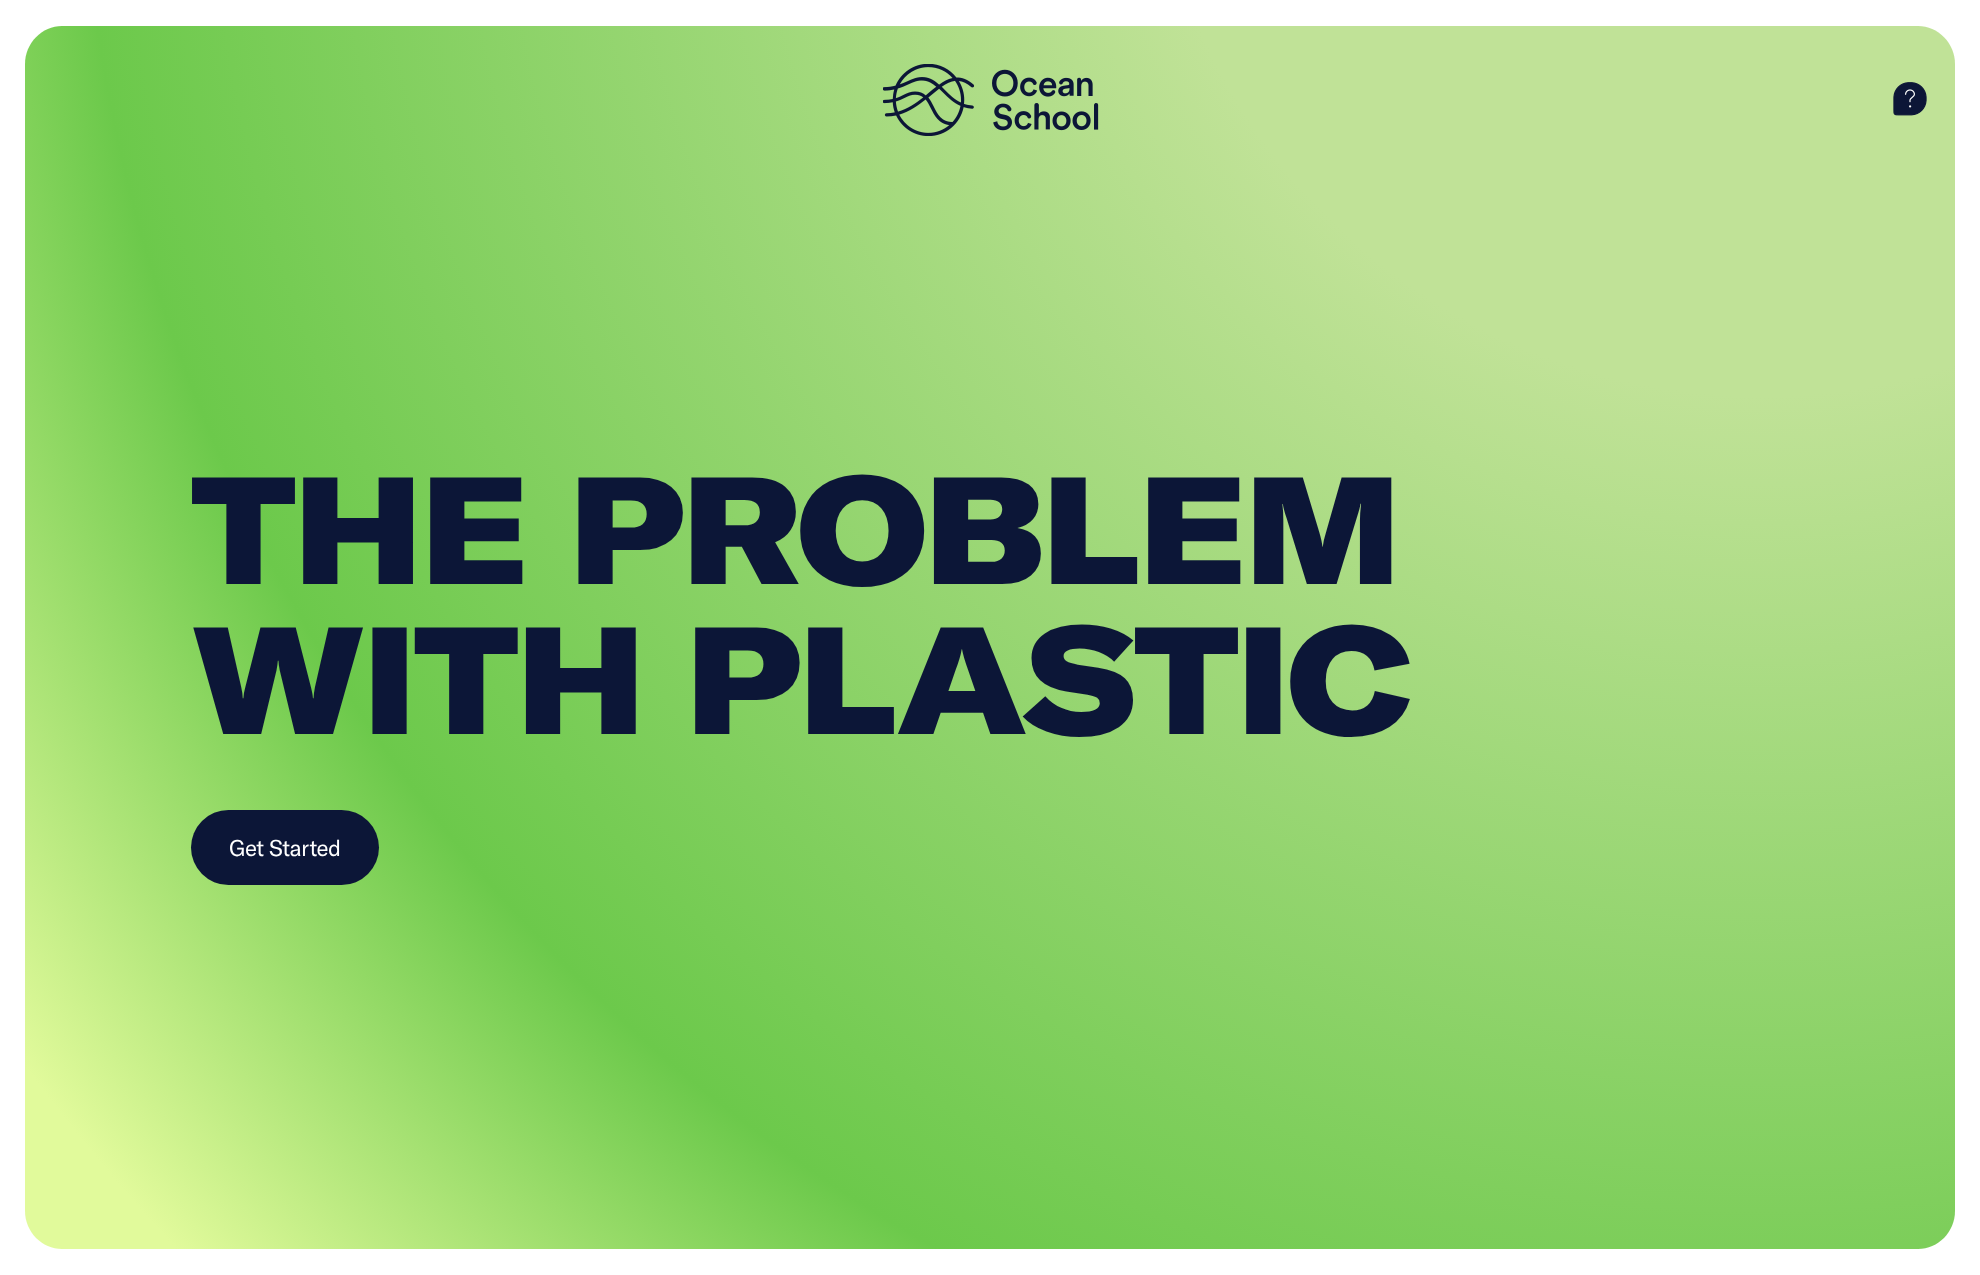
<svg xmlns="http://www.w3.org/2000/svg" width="1980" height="1275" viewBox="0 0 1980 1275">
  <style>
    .t1 { font: 900 150px GT America; letter-spacing: -3px; fill: #0c1637; }
    .t2 { font: 22.5px GT America; letter-spacing: -0.5px; fill: #fff; }
  </style>
  <defs>
    <radialGradient id="g1" gradientUnits="userSpaceOnUse" cx="1762" cy="-218" r="2274"><stop offset="0.27" stop-color="#c0e297"/><stop offset="0.74" stop-color="#6cc94b"/><stop offset="0.95" stop-color="#e1fa9b"/></radialGradient>
  </defs>
  <rect width="100%" height="100%" fill="#fff"/>
  <path d="M62 1249H1918C1938 1249 1955 1232 1955 1211V64C1955 43 1938 26 1918 26H62C42 26 25 43 25 64V1211C25 1232 42 1249 62 1249Z" fill="url(#g1)"/>
  <image x="883" y="64" width="216" height="72" href="images/1.png"/>
  <image x="1893" y="82" width="34" height="34" href="images/2.png"/>
  <text x="191" y="584" class="t1">THE PROBLEM</text>
  <text x="191" y="734" class="t1">WITH PLASTIC</text>
  <rect x="191" y="810" width="188" height="75" rx="37.5" fill="#0c1637"/>
  <text x="229" y="856" class="t2">Get Started</text>
</svg>
